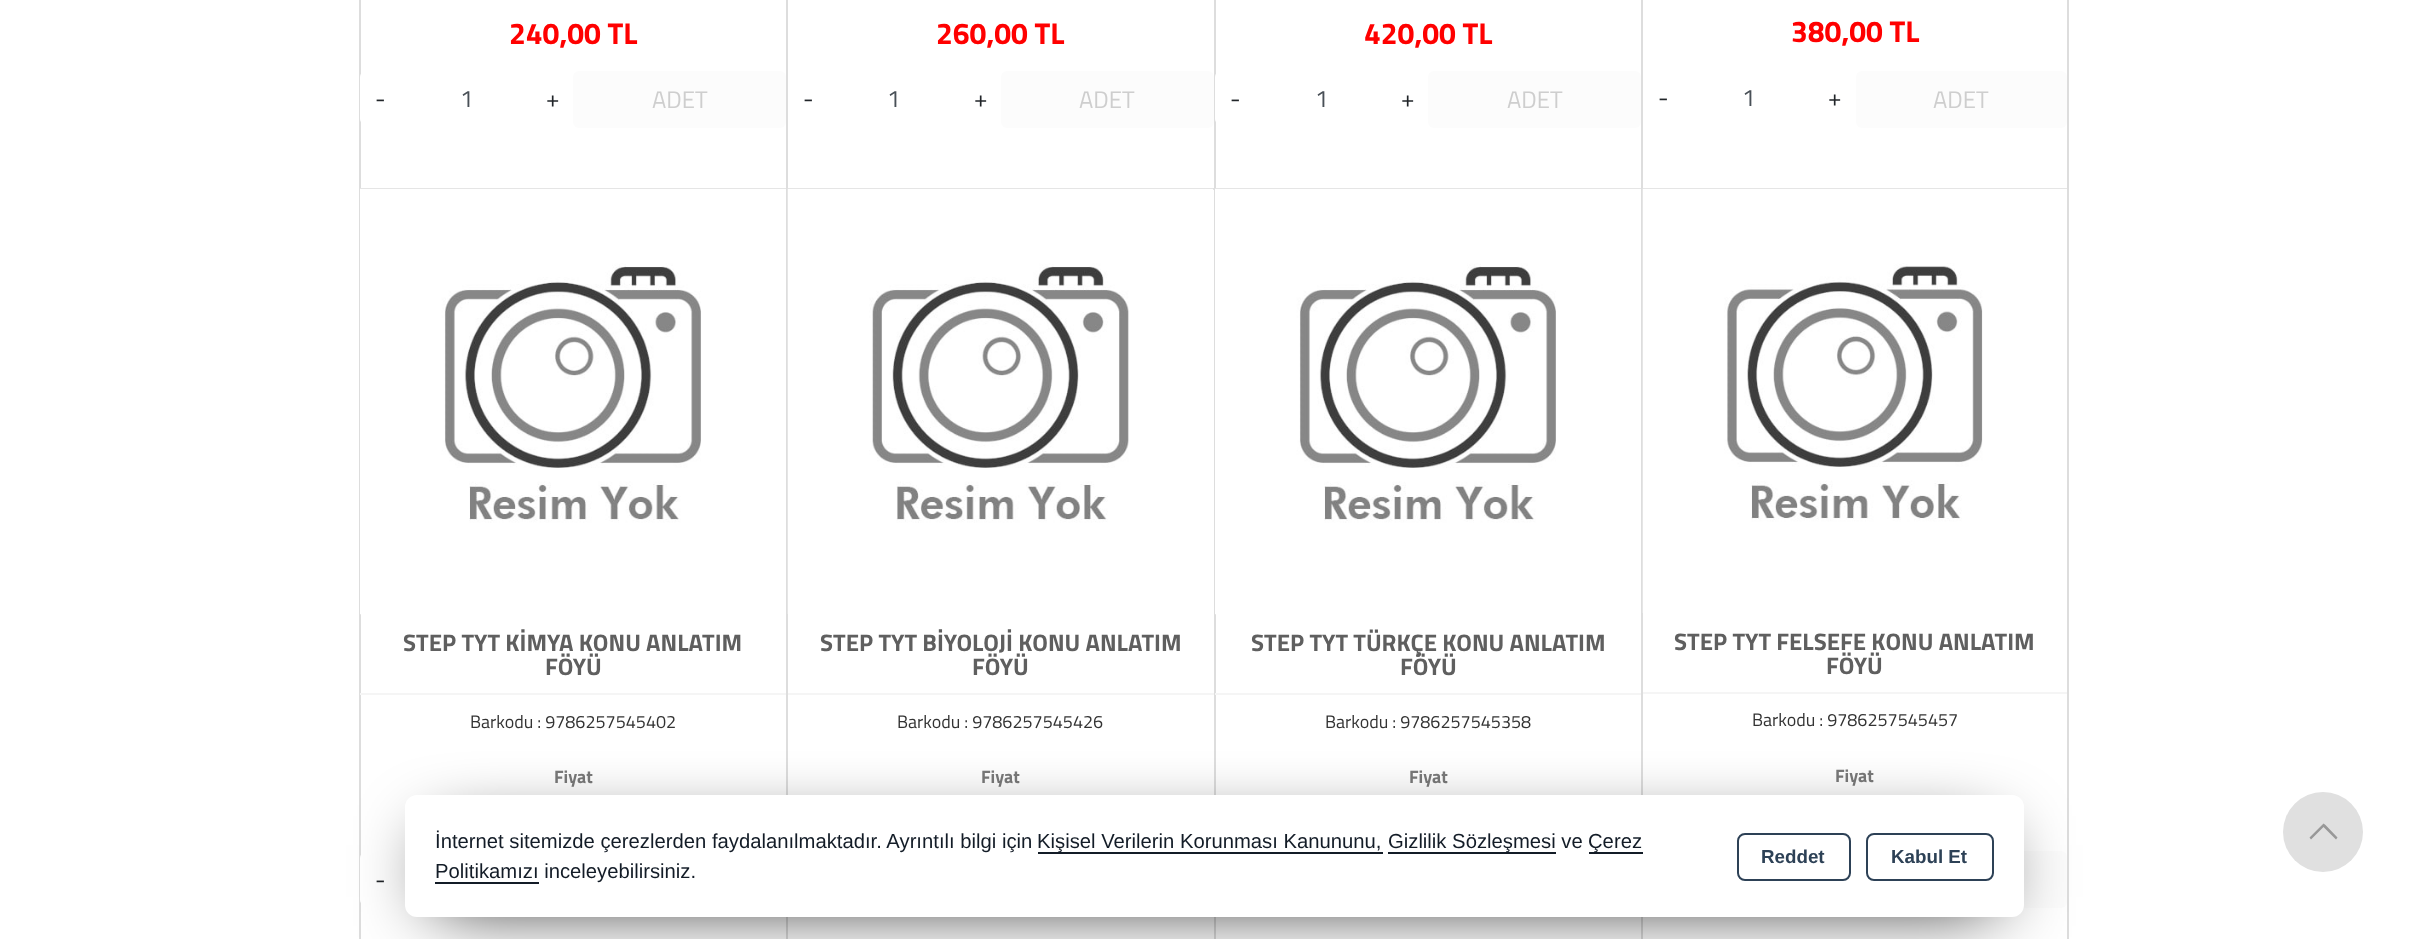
<svg xmlns="http://www.w3.org/2000/svg" width="2427" height="939" viewBox="0 0 2427 939">
  <style>
    .t1 { font: bold 30px Titillium Web; fill: #f00; }
    .t2 { font: 24px Titillium Web; fill: #212529; }
    .t3 { font: 24px Titillium Web; fill: #495057; }
    .t4 { font: 24px Titillium Web; fill: #cecece; }
    .t5 { font: bold 24px Titillium Web; fill: #5f5f5f; }
    .t6 { font: 18px Titillium Web; fill: #333; }
    .t7 { font: bold 18px Titillium Web; fill: #7a7a7a; }
    .t8 { font: 20.25px Liberation Sans; fill: #131c27; }
    .t9 { font: bold 18.75px Liberation Sans; fill: #2d4156; }
  </style>
  <rect width="100%" height="100%" fill="#fff"/>
  <rect x="359" y="0" width="2" height="188" fill="#ddd"/>
  <text x="509" y="44" class="t1">240,00 TL</text>
  <rect x="360" y="71" width="213" height="54" rx="6" fill="#fff"/>
  <text x="375" y="107" class="t2">-</text>
  <text x="460" y="107" class="t3">1</text>
  <text x="546" y="107" class="t2">+</text>
  <rect x="573" y="71" width="213" height="57" rx="6" fill="#fcfcfc"/>
  <text x="652" y="108" class="t4">ADET</text>
  <rect x="786" y="0" width="2" height="188" fill="#ddd"/>
  <text x="936" y="44" class="t1">260,00 TL</text>
  <text x="803" y="107" class="t2">-</text>
  <text x="887" y="107" class="t3">1</text>
  <text x="974" y="107" class="t2">+</text>
  <rect x="1001" y="71" width="213" height="57" rx="6" fill="#fcfcfc"/>
  <text x="1079" y="108" class="t4">ADET</text>
  <rect x="1214" y="0" width="2" height="188" fill="#ddd"/>
  <text x="1364" y="44" class="t1">420,00 TL</text>
  <rect x="1215" y="71" width="213" height="54" rx="6" fill="#fff"/>
  <text x="1230" y="107" class="t2">-</text>
  <text x="1315" y="107" class="t3">1</text>
  <text x="1401" y="107" class="t2">+</text>
  <rect x="1428" y="71" width="213" height="57" rx="6" fill="#fcfcfc"/>
  <text x="1507" y="108" class="t4">ADET</text>
  <rect x="2067" y="0" width="2" height="188" fill="#ddd"/>
  <rect x="1641" y="0" width="2" height="188" fill="#ddd"/>
  <text x="1791" y="42" class="t1">380,00 TL</text>
  <text x="1658" y="106" class="t2">-</text>
  <text x="1742" y="106" class="t3">1</text>
  <text x="1828" y="106" class="t2">+</text>
  <rect x="1856" y="71" width="211" height="57" rx="6" fill="#fcfcfc"/>
  <text x="1933" y="108" class="t4">ADET</text>
  <rect x="359" y="188" width="427" height="1" fill="#ddd"/>
  <rect x="359" y="188" width="2" height="751" fill="#ddd"/>
  <image x="360" y="188" width="426" height="427" href="images/1.png"/>
  <text x="403" y="651" class="t5">STEP TYT KİMYA KONU ANLATIM</text>
  <text x="545" y="675" class="t5">FÖYÜ</text>
  <rect x="360" y="693" width="426" height="2" fill="#f5f5f5"/>
  <text x="470" y="728" class="t6">Barkodu : 9786257545402</text>
  <text x="554" y="783" class="t7">Fiyat</text>
  <rect x="360" y="852" width="213" height="54" rx="6" fill="#fff"/>
  <text x="375" y="888" class="t2">-</text>
  <rect x="786" y="188" width="428" height="2" fill="#ddd"/>
  <rect x="786" y="188" width="2" height="751" fill="#ddd"/>
  <image x="787" y="188" width="427" height="426" href="images/2.png"/>
  <text x="820" y="651" class="t5">STEP TYT BİYOLOJİ KONU ANLATIM</text>
  <text x="972" y="675" class="t5">FÖYÜ</text>
  <rect x="788" y="693" width="426" height="2" fill="#f5f5f5"/>
  <text x="897" y="728" class="t6">Barkodu : 9786257545426</text>
  <text x="981" y="783" class="t7">Fiyat</text>
  <rect x="1214" y="188" width="855" height="1" fill="#ddd"/>
  <rect x="1214" y="188" width="2" height="751" fill="#ddd"/>
  <image x="1215" y="188" width="426" height="427" href="images/3.png"/>
  <text x="1251" y="651" class="t5">STEP TYT TÜRKÇE KONU ANLATIM</text>
  <text x="1400" y="675" class="t5">FÖYÜ</text>
  <rect x="1215" y="693" width="426" height="2" fill="#f5f5f5"/>
  <text x="1325" y="728" class="t6">Barkodu : 9786257545358</text>
  <text x="1409" y="783" class="t7">Fiyat</text>
  <rect x="2067" y="188" width="2" height="751" fill="#ddd"/>
  <rect x="1641" y="188" width="2" height="751" fill="#ddd"/>
  <image x="1642" y="188" width="425" height="425" href="images/4.png"/>
  <text x="1674" y="650" class="t5">STEP TYT FELSEFE KONU ANLATIM</text>
  <text x="1826" y="674" class="t5">FÖYÜ</text>
  <rect x="1643" y="692" width="424" height="2" fill="#f5f5f5"/>
  <text x="1752" y="726" class="t6">Barkodu : 9786257545457</text>
  <text x="1835" y="782" class="t7">Fiyat</text>
  <rect x="1856" y="851" width="211" height="57" rx="6" fill="#fcfcfc"/>
  <circle cx="2323" cy="832" r="40" fill="#e0e0e0"/>
  <path d="M2325.5 825L2323.5 823.5L2309.5 837.5L2311 839.5L2323.5 827L2336 839.5L2337.5 837.5Z" fill="#989898"/>
  <rect x="435" y="840" width="1559" height="62" fill="#000" filter="blur(37.5px)"/>
  <rect x="405" y="795" width="1619" height="122" rx="12" fill="#fff"/>
  <text x="435" y="848" class="t8">İnternet sitemizde çerezlerden faydalanılmaktadır. Ayrıntılı bilgi için</text>
  <rect x="1038" y="852" width="345" height="2" fill="#131c27"/>
  <text x="1037" y="848" class="t8">Kişisel Verilerin Korunması Kanununu,</text>
  <rect x="1388" y="852" width="168" height="2" fill="#131c27"/>
  <text x="1388" y="848" class="t8">Gizlilik Sözleşmesi ve</text>
  <rect x="1589" y="852" width="54" height="2" fill="#131c27"/>
  <text x="1588" y="848" class="t8">Çerez</text>
  <rect x="435" y="882" width="104" height="2" fill="#131c27"/>
  <text x="435" y="878" class="t8">Politikamızı inceleyebilirsiniz.</text>
  <rect x="1738" y="834" width="112" height="46" rx="7" fill="none" stroke="#2d4156" stroke-width="2"/>
  <text x="1761" y="863" class="t9">Reddet</text>
  <rect x="1867" y="834" width="126" height="46" rx="7" fill="none" stroke="#2d4156" stroke-width="2"/>
  <text x="1891" y="863" class="t9">Kabul Et</text>
</svg>
